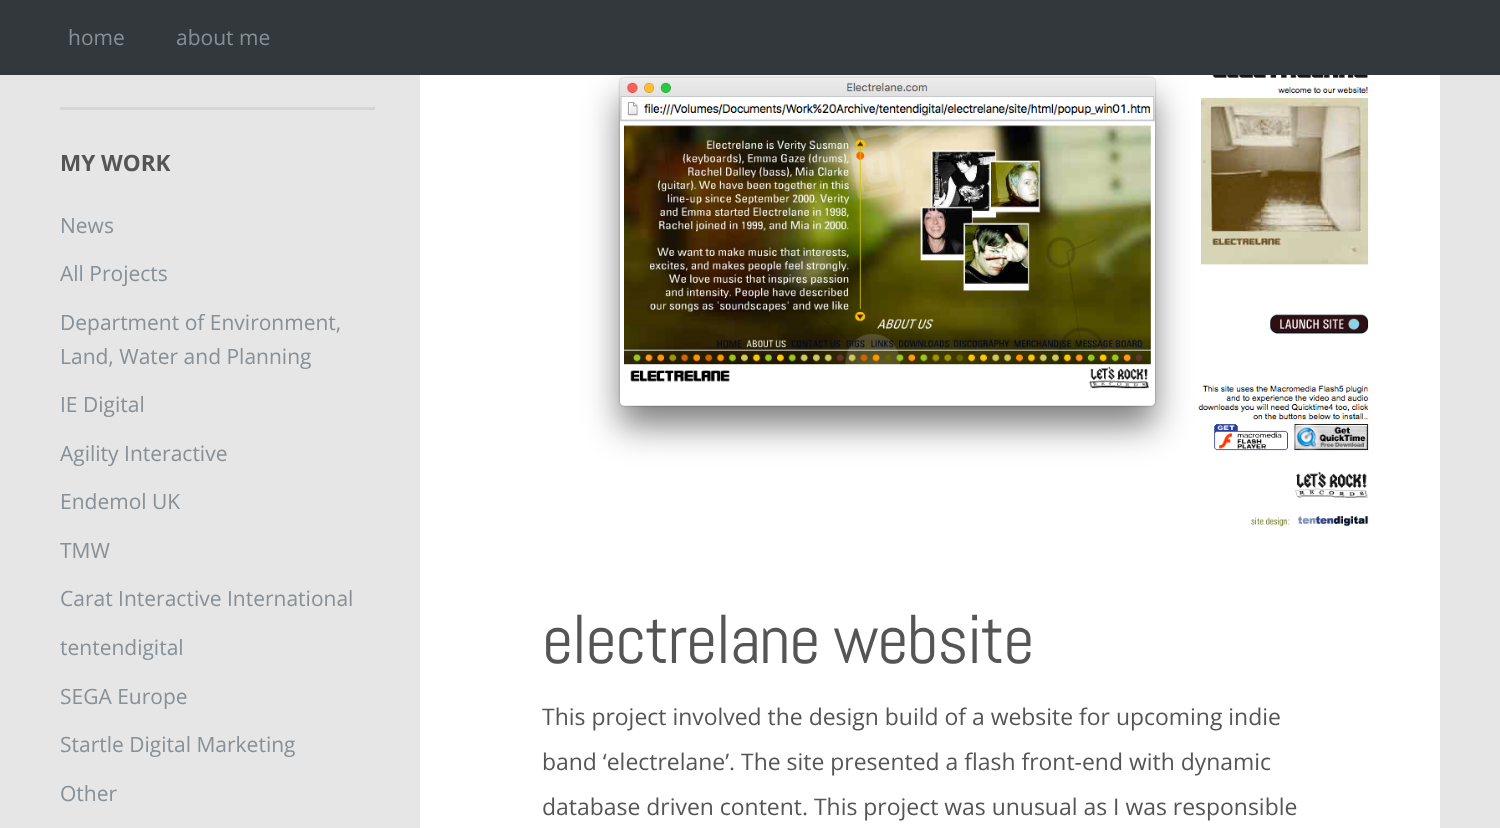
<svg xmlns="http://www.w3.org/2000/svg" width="1500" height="828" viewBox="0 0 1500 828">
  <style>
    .t1 { font: 21px Open Sans; fill: #879097; }
    .t2 { font: bold 22.5px Open Sans; fill: #555; }
    .t3 { font: 69px Abel; letter-spacing: -1.5px; fill: #555; }
    .t4 { font: 22.95px Open Sans; fill: #555; }
  </style>
  <rect width="100%" height="100%" fill="#e6e6e6"/>
  <rect x="0" y="0" width="1500" height="75" fill="#32383c"/>
  <text x="68" y="45" class="t1">home</text>
  <text x="176" y="45" class="t1">about me</text>
  <rect x="60" y="107" width="315" height="3" fill="#d3d5d6"/>
  <text x="60" y="171" class="t2">MY WORK</text>
  <text x="60" y="233" class="t1">News</text>
  <text x="60" y="281" class="t1">All Projects</text>
  <text x="60" y="330" class="t1">Department of Environment,</text>
  <text x="60" y="364" class="t1">Land, Water and Planning</text>
  <text x="60" y="412" class="t1">IE Digital</text>
  <text x="60" y="461" class="t1">Agility Interactive</text>
  <text x="60" y="509" class="t1">Endemol UK</text>
  <text x="60" y="558" class="t1">TMW</text>
  <text x="60" y="606" class="t1">Carat Interactive International</text>
  <text x="60" y="655" class="t1">tentendigital</text>
  <text x="60" y="704" class="t1">SEGA Europe</text>
  <text x="60" y="752" class="t1">Startle Digital Marketing</text>
  <text x="60" y="801" class="t1">Other</text>
  <rect x="420" y="527" width="1020" height="301" fill="#fff"/>
  <image x="420" y="75" width="1020" height="452" href="images/1.png"/>
  <text x="542" y="663" class="t3">electrelane website</text>
  <text x="542" y="725" class="t4">This project involved the design build of a website for upcoming indie</text>
  <text x="542" y="770" class="t4">band ‘electrelane’. The site presented a flash front-end with dynamic</text>
  <text x="542" y="815" class="t4">database driven content. This project was unusual as I was responsible</text>
</svg>
